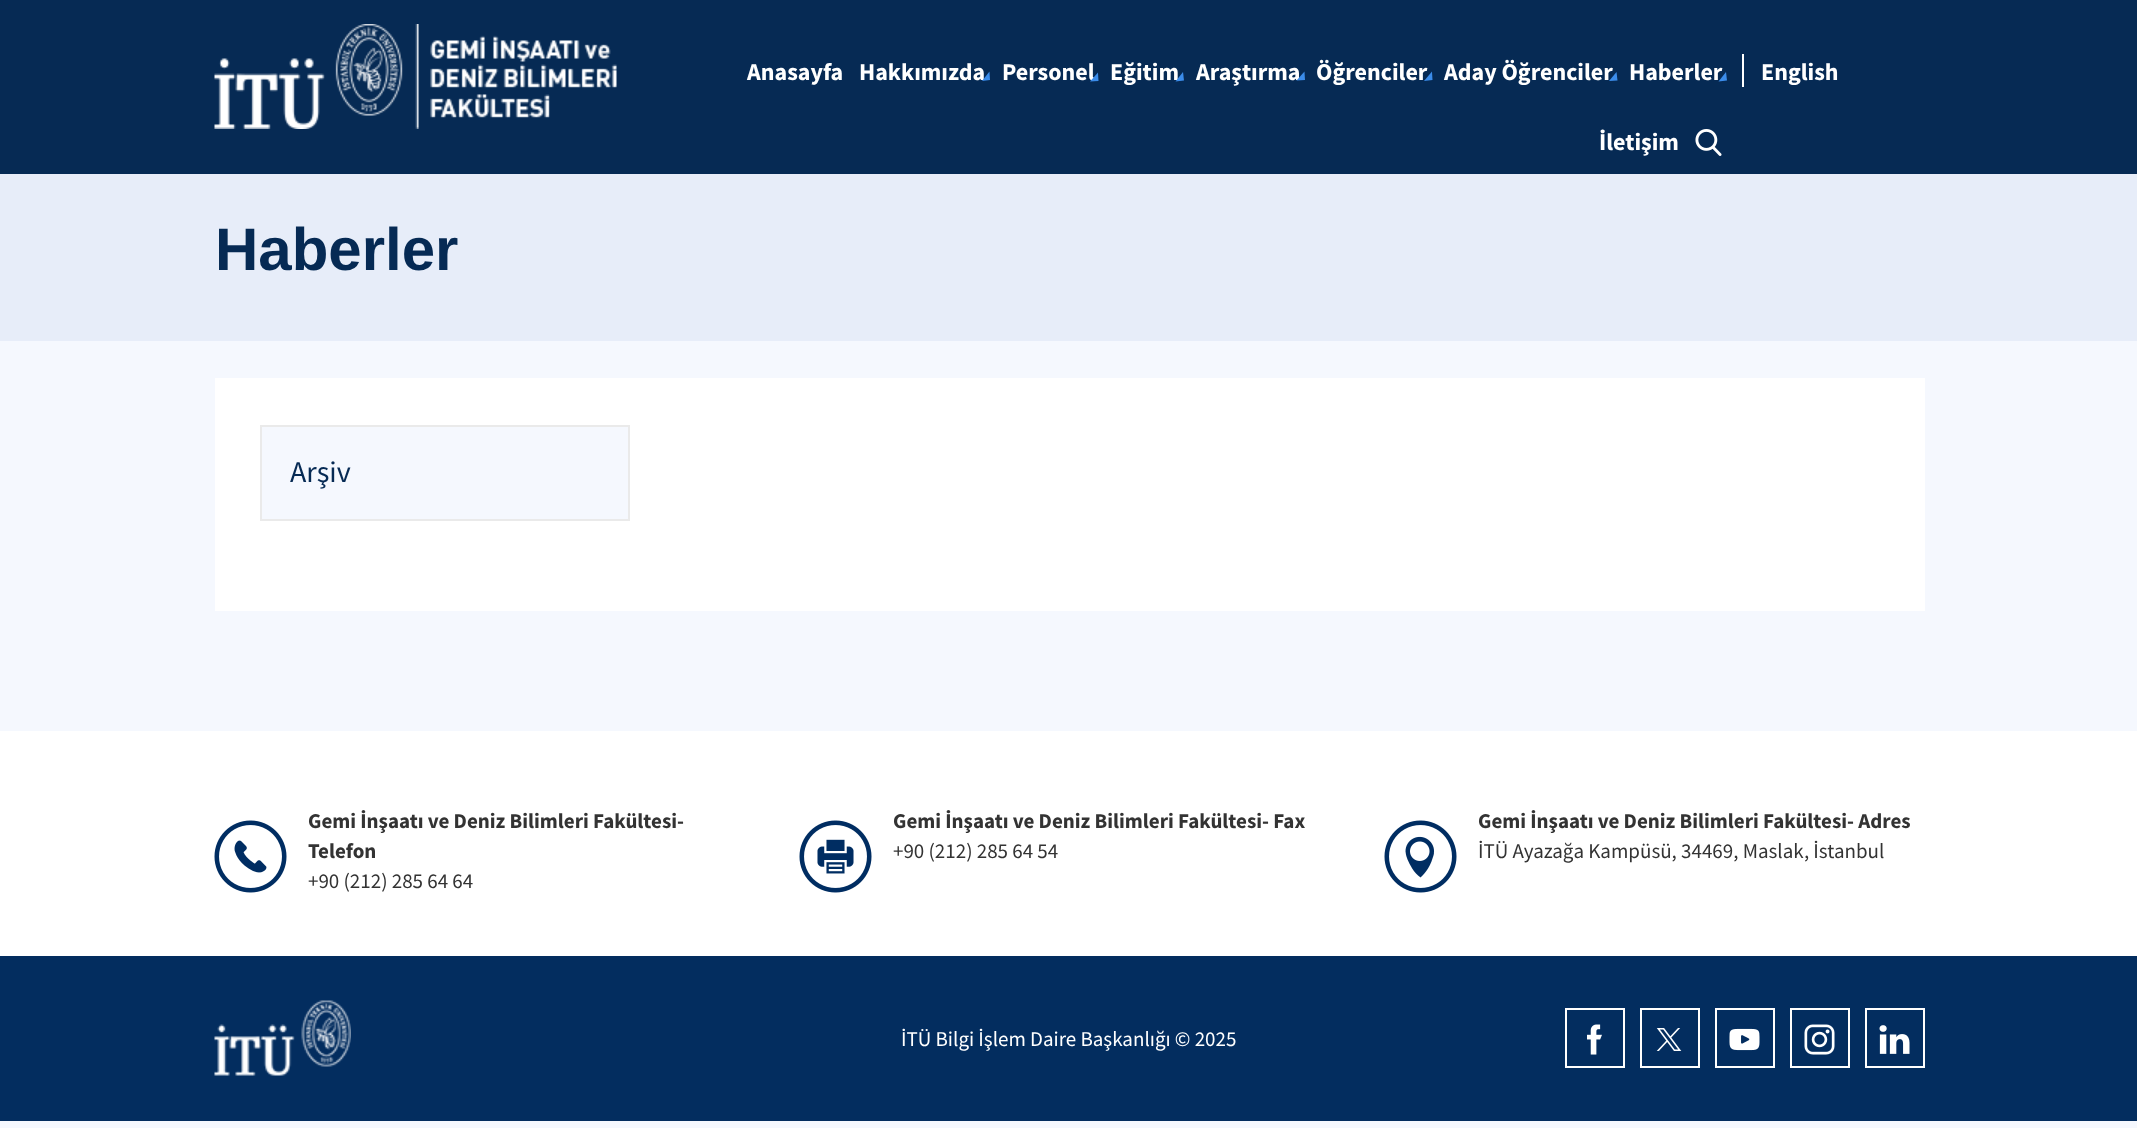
<svg xmlns="http://www.w3.org/2000/svg" width="2137" height="1128" viewBox="0 0 2137 1128">
  <style>
    .t1 { font: bold 24px Source Sans Pro; fill: #fff; }
    .t2 { font: bold 60px Liberation Sans; fill: #062a54; }
    .t3 { font: 30px Source Sans Pro; fill: #062a54; }
    .t4 { font: bold 21px Source Sans Pro; fill: #333; }
    .t5 { font: 21px Source Sans Pro; fill: #333; }
    .t6 { font: 21px Source Sans Pro; fill: #fff; }
  </style>
  <rect width="100%" height="100%" fill="#f5f8fe"/>
  <rect x="0" y="0" width="2137" height="174" fill="#062a54"/>
  <image x="214" y="24" width="403" height="105" href="images/1.png"/>
  <text x="747" y="80" class="t1">Anasayfa</text>
  <text x="859" y="80" class="t1">Hakkımızda</text>
  <path d="M982 81L990 80L989.5 71.5Z" fill="#3b8cea"/>
  <text x="1002" y="80" class="t1">Personel</text>
  <path d="M1090 81.5L1098.5 81L1098 72.5Z" fill="#3b8cea"/>
  <text x="1110" y="80" class="t1">Eğitim</text>
  <path d="M1175.5 81.5L1184 80.5L1183 72Z" fill="#3b8cea"/>
  <text x="1196" y="80" class="t1">Araştırma</text>
  <path d="M1296.5 80.5L1305 80L1304.5 71.5Z" fill="#3b8cea"/>
  <text x="1316" y="80" class="t1">Öğrenciler</text>
  <path d="M1424 81L1432.5 80L1432 71.5Z" fill="#3b8cea"/>
  <text x="1444" y="80" class="t1">Aday Öğrenciler</text>
  <path d="M1609 81L1617.5 80.5L1616.5 72Z" fill="#3b8cea"/>
  <text x="1629" y="80" class="t1">Haberler</text>
  <path d="M1718.5 81.5L1727 80.5L1726 72Z" fill="#3b8cea"/>
  <text x="1599" y="150" class="t1">İletişim</text>
  <image x="1695" y="129" width="27" height="27" href="images/2.png"/>
  <rect x="1742" y="54" width="2" height="33" fill="#fff"/>
  <text x="1761" y="80" class="t1">English</text>
  <rect x="0" y="174" width="2137" height="167" fill="#e7edf9"/>
  <text x="215" y="270" class="t2">Haberler</text>
  <rect x="215" y="378" width="1710" height="233" fill="#fff"/>
  <rect x="261" y="426" width="368" height="94" fill="#f5f8fe" stroke="#eaeaea" stroke-width="2"/>
  <text x="290" y="482" class="t3">Arşiv</text>
  <rect x="0" y="731" width="2137" height="225" fill="#fff"/>
  <image x="214" y="820" width="73" height="73" href="images/3.png"/>
  <text x="308" y="828" class="t4">Gemi İnşaatı ve Deniz Bilimleri Fakültesi-</text>
  <text x="308" y="858" class="t4">Telefon</text>
  <text x="308" y="888" class="t5">+90 (212) 285 64 64</text>
  <image x="799" y="820" width="73" height="73" href="images/4.png"/>
  <text x="893" y="828" class="t4">Gemi İnşaatı ve Deniz Bilimleri Fakültesi- Fax</text>
  <text x="893" y="858" class="t5">+90 (212) 285 64 54</text>
  <image x="1384" y="820" width="73" height="73" href="images/5.png"/>
  <text x="1478" y="828" class="t4">Gemi İnşaatı ve Deniz Bilimleri Fakültesi- Adres</text>
  <text x="1478" y="858" class="t5">İTÜ Ayazağa Kampüsü, 34469, Maslak, İstanbul</text>
  <rect x="0" y="956" width="2137" height="165" fill="#032d5f"/>
  <image x="214" y="1000" width="137" height="76" href="images/6.png"/>
  <text x="901" y="1046" class="t6">İTÜ Bilgi İşlem Daire Başkanlığı © 2025</text>
  <rect x="1566" y="1009" width="58" height="58" fill="none" stroke="#fff" stroke-width="2"/>
  <image x="1587" y="1024" width="15" height="31" href="images/7.png"/>
  <rect x="1641" y="1009" width="58" height="58" fill="none" stroke="#fff" stroke-width="2"/>
  <image x="1656" y="1028" width="26" height="23" href="images/8.png"/>
  <rect x="1716" y="1009" width="58" height="58" fill="none" stroke="#fff" stroke-width="2"/>
  <image x="1729" y="1028" width="31" height="23" href="images/9.png"/>
  <rect x="1791" y="1009" width="58" height="58" fill="none" stroke="#fff" stroke-width="2"/>
  <image x="1804" y="1024" width="31" height="31" href="images/10.png"/>
  <rect x="1866" y="1009" width="58" height="58" fill="none" stroke="#fff" stroke-width="2"/>
  <image x="1879" y="1025" width="31" height="29" href="images/11.png"/>
</svg>
